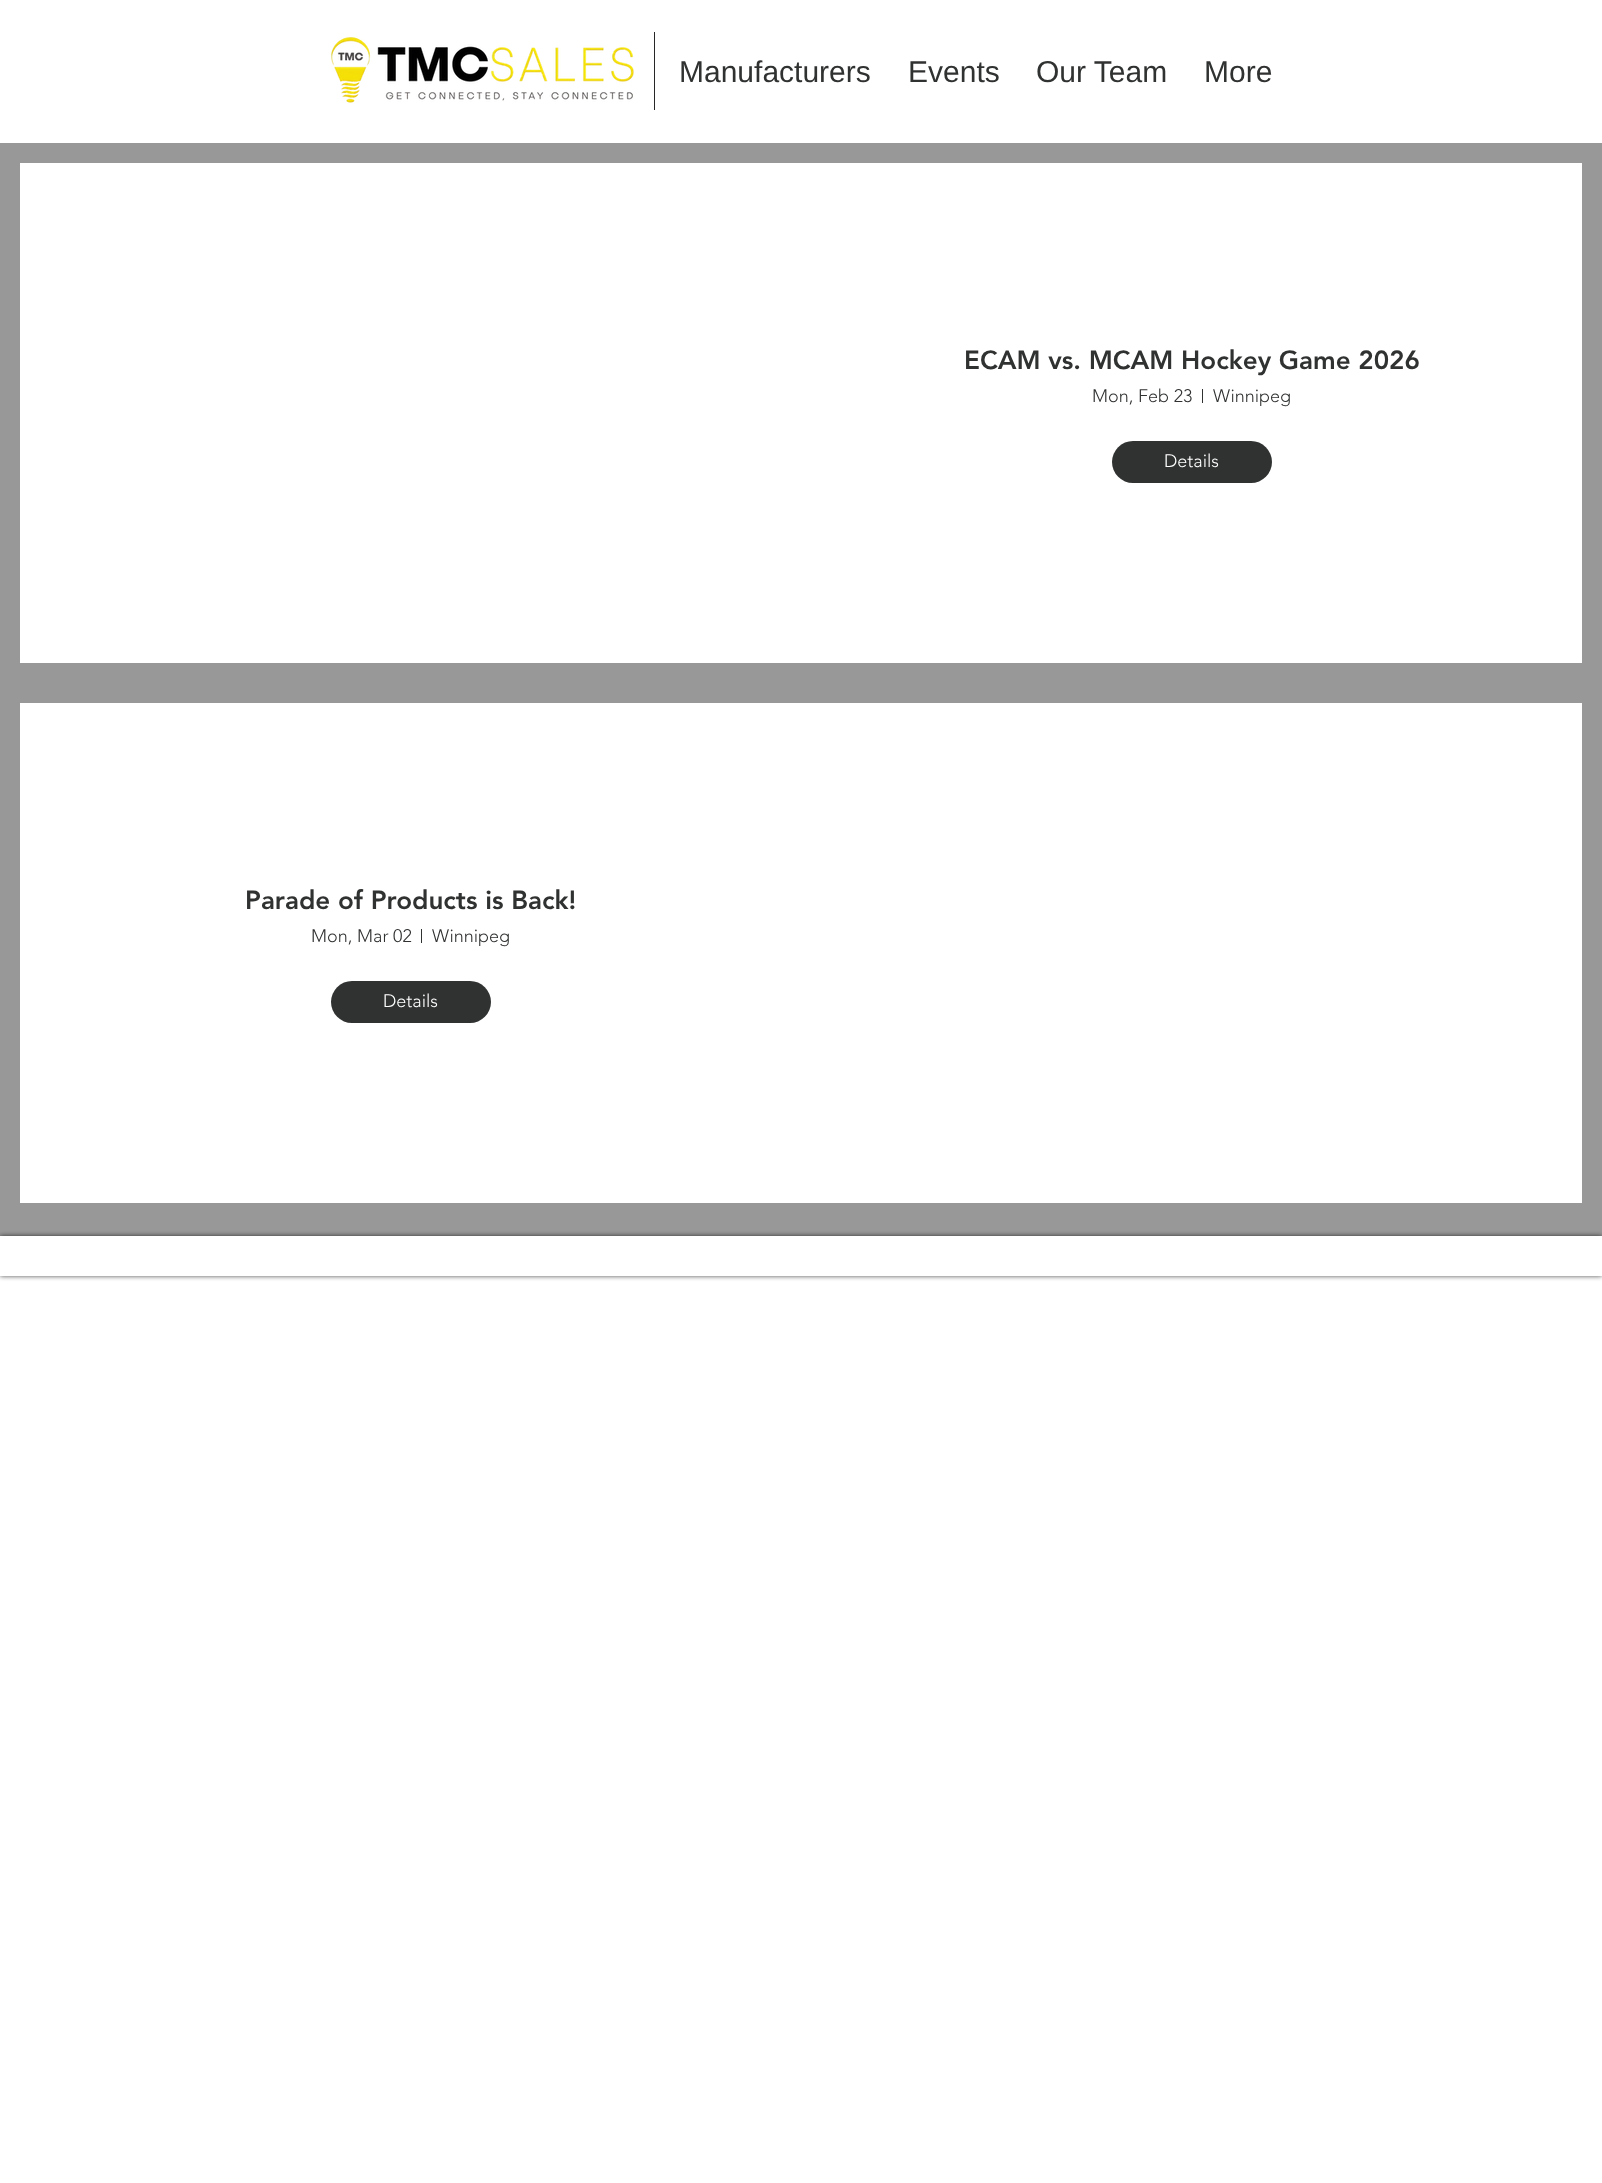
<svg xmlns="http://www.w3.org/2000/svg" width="1602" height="2183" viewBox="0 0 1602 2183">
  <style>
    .t1 { font: 30px Liberation Sans; fill: #303131; }
    .t2 { font: 900 26px 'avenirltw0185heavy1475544'; fill: #303131; }
    .t3 { font: 300 18px 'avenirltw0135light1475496'; fill: #303131; }
    .t4 { font: 300 18px 'avenirltw0135light1475496'; fill: #fff; }
  </style>
  <defs>
    <clipPath id="clip1"><path d="M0 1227H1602V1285H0ZM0 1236H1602V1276H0Z" clip-rule="evenodd"/></clipPath>
  </defs>
  <rect width="100%" height="100%" fill="#fff"/>
  <image x="331" y="37" width="303" height="66" href="images/1.png"/>
  <rect x="654" y="32" width="1" height="78" fill="#282626"/>
  <text x="679" y="82" class="t1">Manufacturers</text>
  <text x="908" y="82" class="t1">Events</text>
  <text x="1036" y="82" class="t1">Our Team</text>
  <text x="1204" y="82" class="t1">More</text>
  <rect x="0" y="143" width="1602" height="1093" fill="#989898"/>
  <rect x="20" y="163" width="1562" height="500" fill="#fff"/>
  <text x="964" y="369" class="t2">ECAM vs. MCAM Hockey Game 2026</text>
  <text x="1092" y="402" class="t3">Mon, Feb 23</text>
  <rect x="1202" y="389" width="1" height="14" fill="#303131"/>
  <text x="1213" y="402" class="t3">Winnipeg</text>
  <rect x="1112" y="441" width="160" height="42" rx="21" fill="#303131"/>
  <text x="1164" y="467" class="t4">Details</text>
  <rect x="20" y="703" width="1562" height="500" fill="#fff"/>
  <text x="245" y="909" class="t2">Parade of Products is Back!</text>
  <text x="311" y="942" class="t3">Mon, Mar 02</text>
  <rect x="421" y="929" width="1" height="14" fill="#303131"/>
  <text x="432" y="942" class="t3">Winnipeg</text>
  <rect x="331" y="981" width="160" height="42" rx="21" fill="#303131"/>
  <text x="383" y="1007" class="t4">Details</text>
  <g clip-path="url(#clip1)">
    <rect x="0" y="1236" width="1602" height="40" fill="#000000b3" filter="blur(2.5px)"/>
  </g>
</svg>
